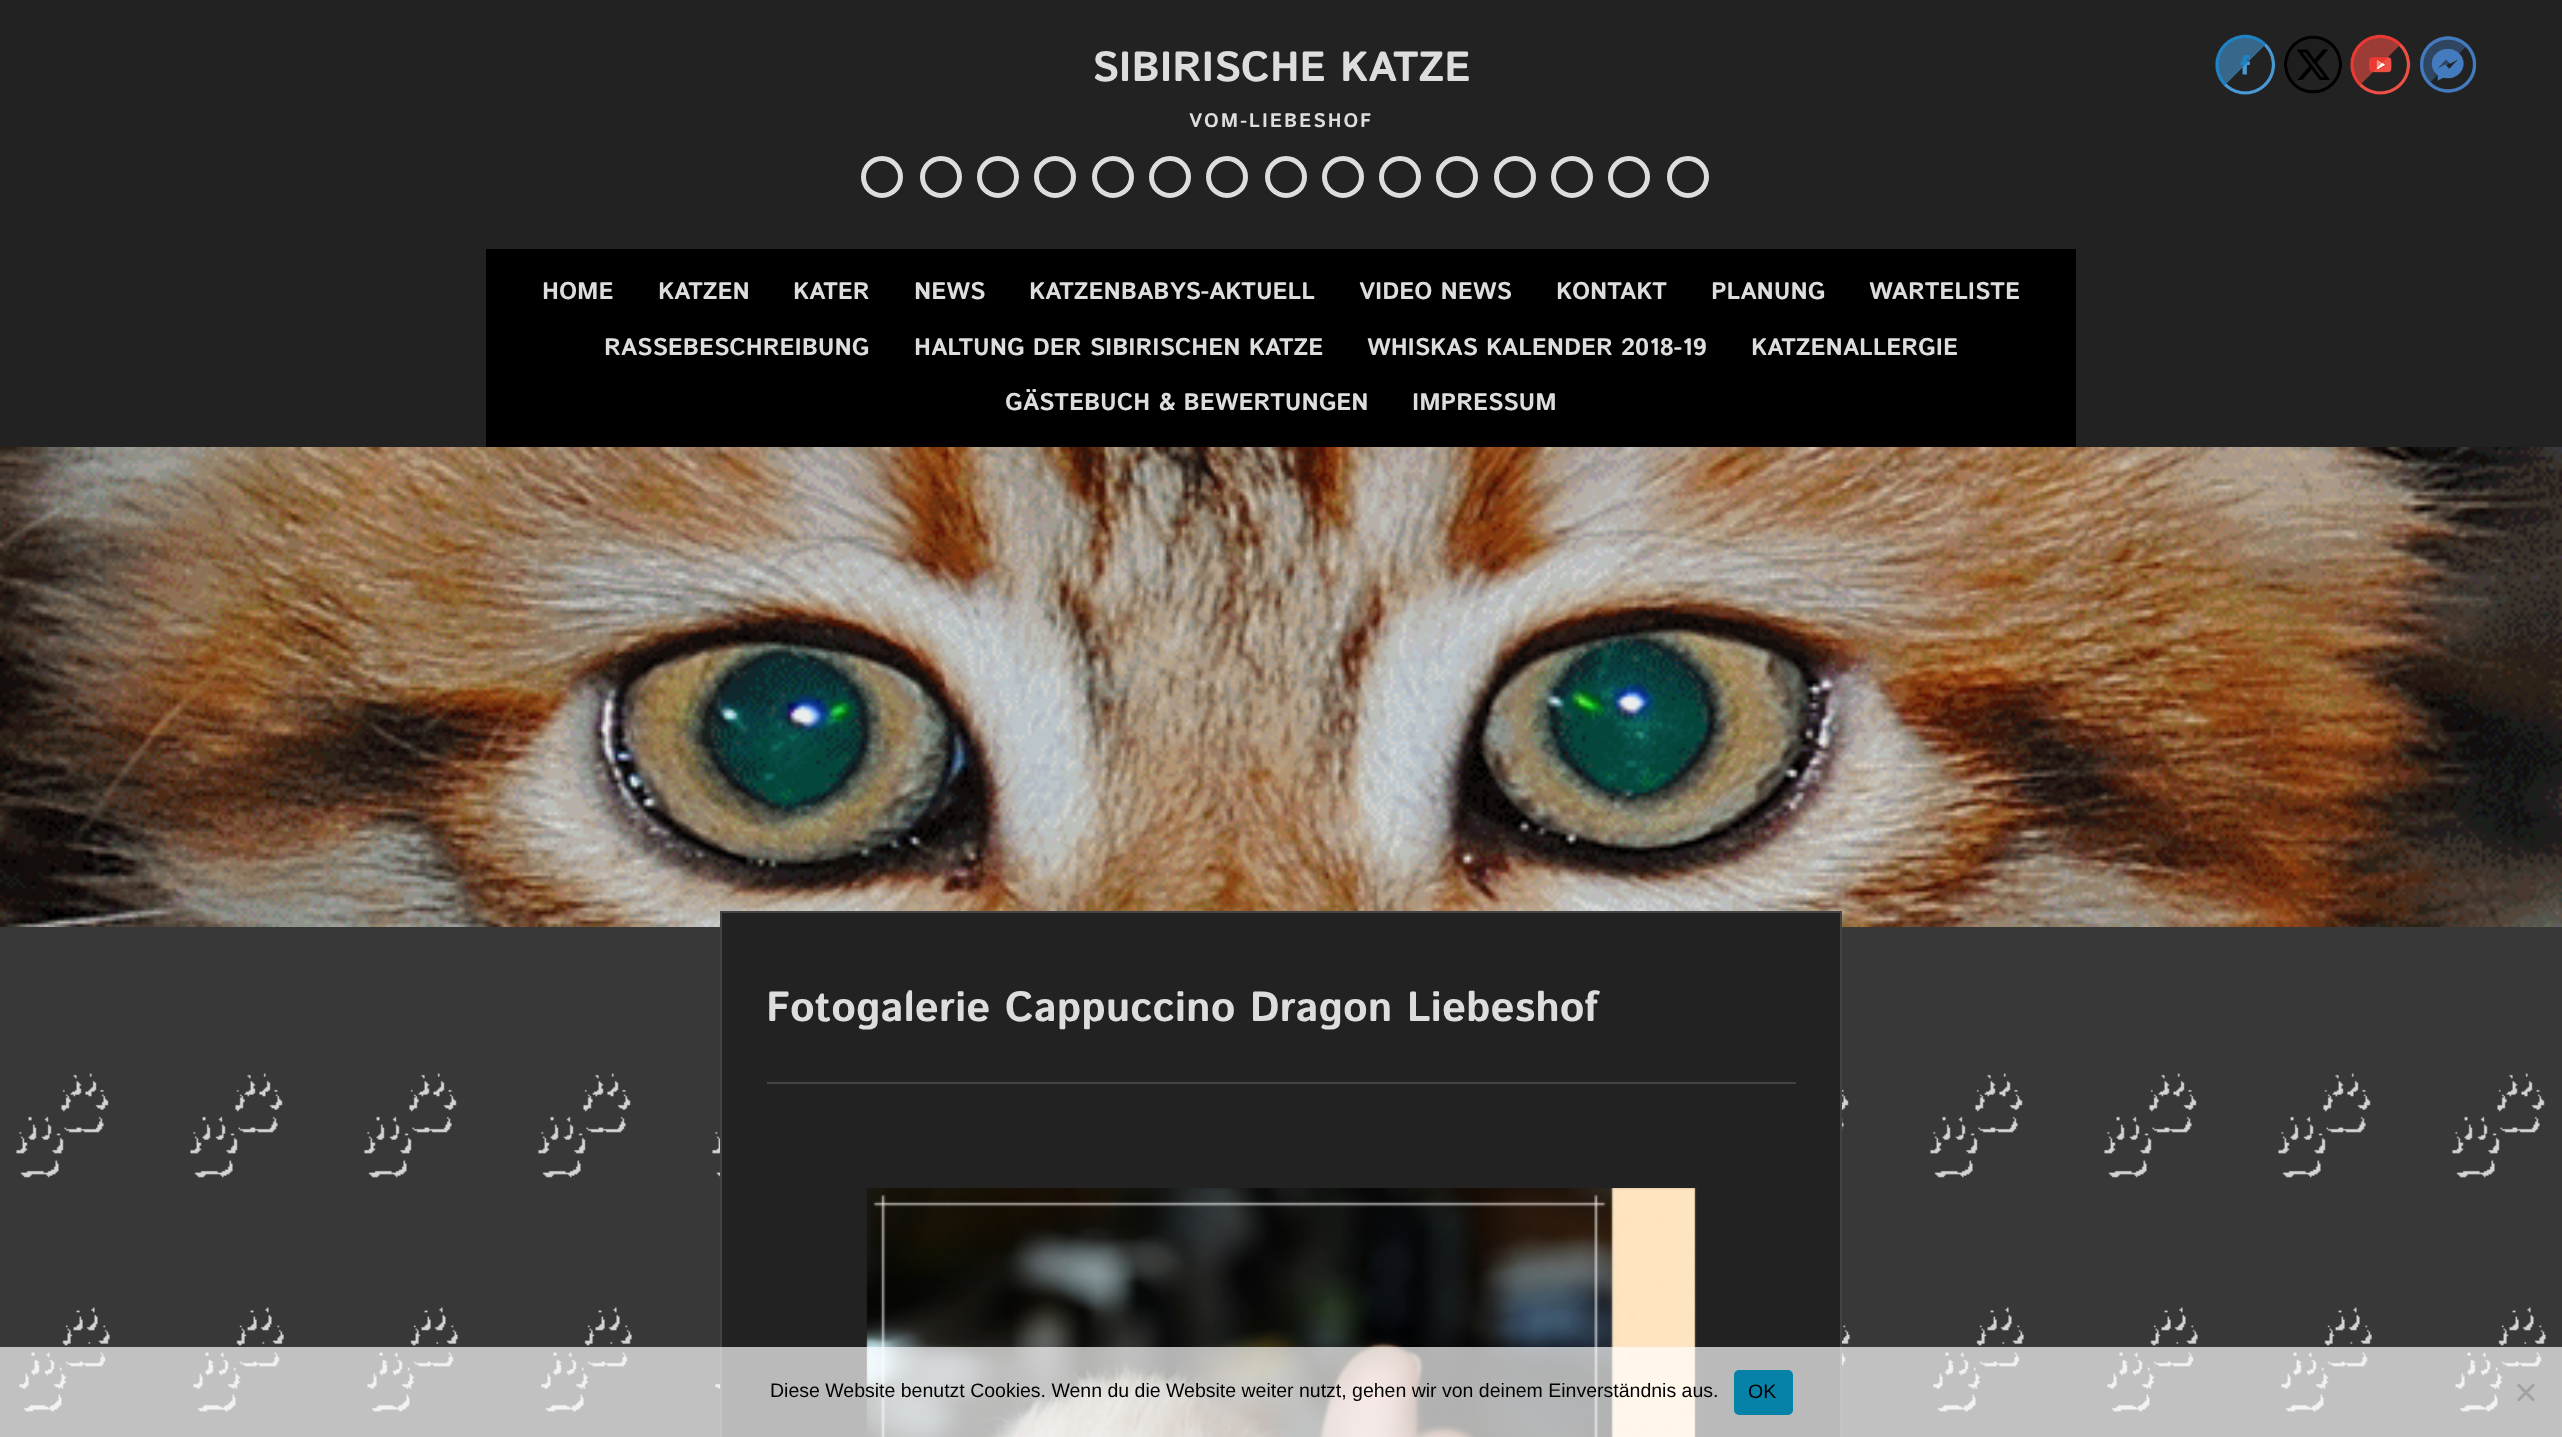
<svg xmlns="http://www.w3.org/2000/svg" width="2562" height="1437" viewBox="0 0 2562 1437">
  <style>
    .t1 { font: bold 42px Istok Web; fill: #ddd; }
    .t2 { font: bold 19.5px Istok Web; letter-spacing: 2px; fill: #ddd; }
    .t3 { font: bold 24px Istok Web; fill: #ddd; }
    .t4 { font: 19.5px Liberation Sans; fill: #000; }
  </style>
  <rect width="100%" height="100%" fill="#fff"/>
  <image x="0" y="927" width="2562" height="510" href="images/1.png"/>
  <rect x="0" y="0" width="2562" height="447" fill="#222"/>
  <text x="1092" y="81" class="t1">SIBIRISCHE KATZE</text>
  <text x="1189" y="127" class="t2">VOM-LIEBESHOF</text>
  <circle cx="882" cy="177" r="18.5" fill="none" stroke="#ddd" stroke-width="5"/>
  <circle cx="941" cy="177" r="18.5" fill="none" stroke="#ddd" stroke-width="5"/>
  <circle cx="998" cy="177" r="18.5" fill="none" stroke="#ddd" stroke-width="5"/>
  <circle cx="1055" cy="177" r="18.5" fill="none" stroke="#ddd" stroke-width="5"/>
  <circle cx="1113" cy="177" r="18.5" fill="none" stroke="#ddd" stroke-width="5"/>
  <circle cx="1170" cy="177" r="18.5" fill="none" stroke="#ddd" stroke-width="5"/>
  <circle cx="1227" cy="177" r="18.5" fill="none" stroke="#ddd" stroke-width="5"/>
  <circle cx="1286" cy="177" r="18.5" fill="none" stroke="#ddd" stroke-width="5"/>
  <circle cx="1343" cy="177" r="18.5" fill="none" stroke="#ddd" stroke-width="5"/>
  <circle cx="1400" cy="177" r="18.5" fill="none" stroke="#ddd" stroke-width="5"/>
  <circle cx="1457" cy="177" r="18.5" fill="none" stroke="#ddd" stroke-width="5"/>
  <circle cx="1515" cy="177" r="18.5" fill="none" stroke="#ddd" stroke-width="5"/>
  <circle cx="1572" cy="177" r="18.5" fill="none" stroke="#ddd" stroke-width="5"/>
  <circle cx="1629" cy="177" r="18.5" fill="none" stroke="#ddd" stroke-width="5"/>
  <circle cx="1688" cy="177" r="18.5" fill="none" stroke="#ddd" stroke-width="5"/>
  <rect x="486" y="249" width="1590" height="198" fill="#000"/>
  <text x="542" y="299" class="t3">HOME</text>
  <text x="658" y="299" class="t3">KATZEN</text>
  <text x="793" y="299" class="t3">KATER</text>
  <text x="914" y="299" class="t3">NEWS</text>
  <text x="1029" y="299" class="t3">KATZENBABYS-AKTUELL</text>
  <text x="1359" y="299" class="t3">VIDEO NEWS</text>
  <text x="1556" y="299" class="t3">KONTAKT</text>
  <text x="1711" y="299" class="t3">PLANUNG</text>
  <text x="1869" y="299" class="t3">WARTELISTE</text>
  <text x="604" y="355" class="t3">RASSEBESCHREIBUNG</text>
  <text x="914" y="355" class="t3">HALTUNG DER SIBIRISCHEN KATZE</text>
  <text x="1367" y="355" class="t3">WHISKAS KALENDER 2018-19</text>
  <text x="1751" y="355" class="t3">KATZENALLERGIE</text>
  <text x="1005" y="410" class="t3">GÄSTEBUCH &amp; BEWERTUNGEN</text>
  <text x="1412" y="410" class="t3">IMPRESSUM</text>
  <image x="0" y="447" width="2562" height="480" href="images/2.png"/>
  <rect x="721" y="912" width="1120" height="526" fill="#222" stroke="#444" stroke-width="2"/>
  <text x="766" y="1021" class="t1">Fotogalerie Cappuccino Dragon Liebeshof</text>
  <rect x="767" y="1082" width="1029" height="2" fill="#444"/>
  <image x="866" y="1188" width="831" height="249" href="images/3.png"/>
  <image x="2215" y="34" width="61" height="61" href="images/4.png"/>
  <image x="2284" y="35" width="58" height="59" href="images/5.png"/>
  <image x="2350" y="34" width="61" height="61" href="images/6.png"/>
  <image x="2420" y="36" width="57" height="57" href="images/7.png"/>
  <rect x="0" y="1347" width="2562" height="90" fill="#ffffffb0"/>
  <text x="770" y="1397" class="t4">Diese Website benutzt Cookies. Wenn du die Website weiter nutzt, gehen wir von deinem Einverständnis aus.</text>
  <rect x="1734" y="1370" width="59" height="45" rx="5" fill="#0682a8"/>
  <text x="1748" y="1398" class="t4">OK</text>
  <path d="M2533 1383.5L2535 1385.5L2519 1401.5L2517 1399.5Z" fill="#a1a1a1"/>
  <path d="M2517 1385.5L2519 1383.5L2535 1399.5L2533 1401.5Z" fill="#a1a1a1"/>
</svg>
